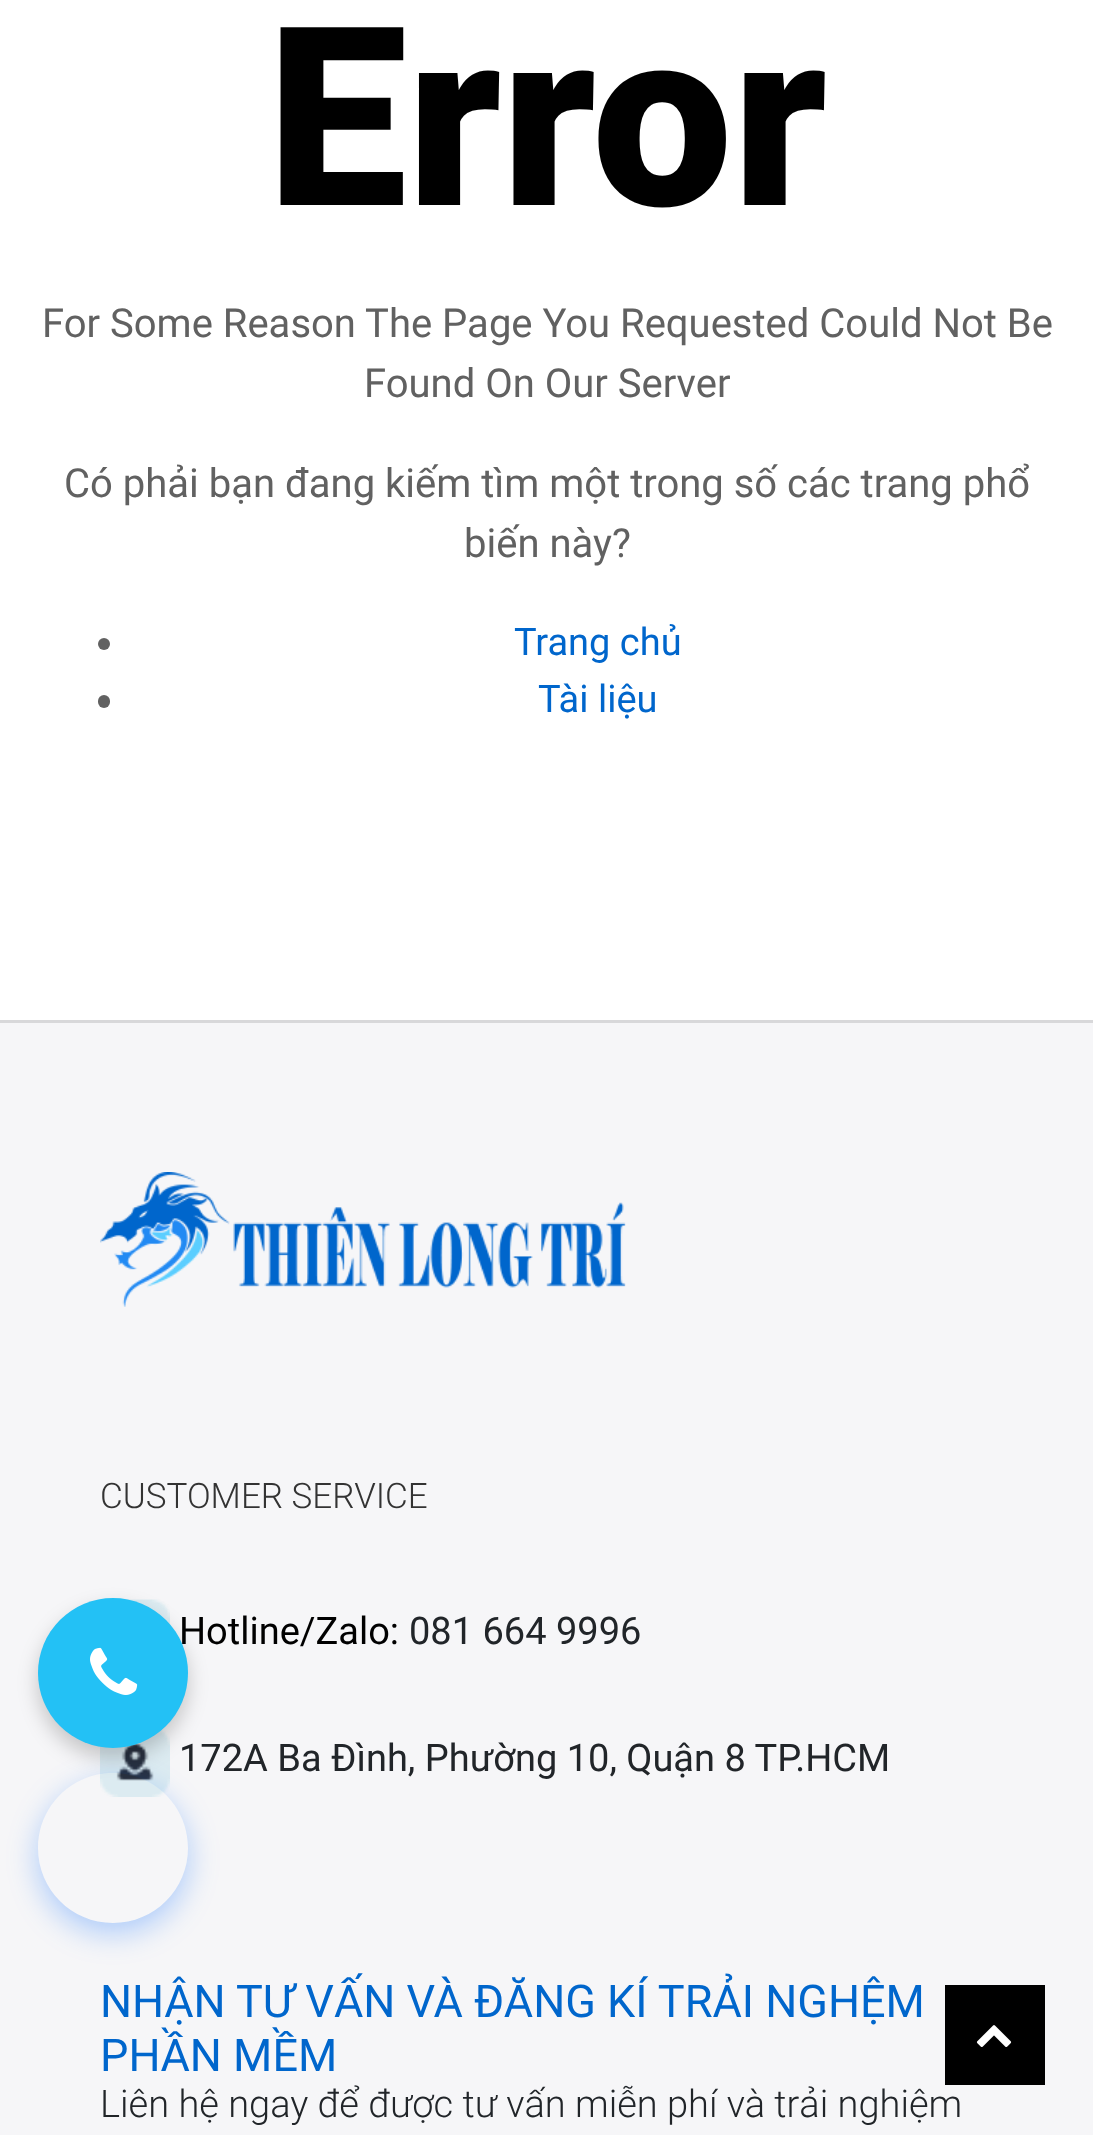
<svg xmlns="http://www.w3.org/2000/svg" width="1093" height="2135" viewBox="0 0 1093 2135">
  <style>
    .t1 { font: 900 250px Roboto; fill: #000; }
    .t2 { font: 40px Roboto; fill: #616161; }
    .t3 { font: 38px Roboto; fill: #06c; }
    .t4 { font: 300 35px Roboto; fill: #333; }
    .t5 { font: 38px Roboto; fill: #000; }
    .t6 { font: 38px Roboto; fill: #212529; }
    .t7 { font: 45px Roboto; fill: #06c; }
    .t8 { font: 300 38px Roboto; fill: #212529; }
  </style>
  <defs>
    <clipPath id="clip1"><path d="M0 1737H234V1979H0ZM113 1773C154.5 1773 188 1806.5 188 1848C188 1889.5 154.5 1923 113 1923C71.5 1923 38 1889.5 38 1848C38 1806.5 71.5 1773 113 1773Z" clip-rule="evenodd"/></clipPath>
  </defs>
  <rect width="100%" height="100%" fill="#fff"/>
  <text x="267" y="205" class="t1">Error</text>
  <text x="42" y="337" class="t2">For Some Reason The Page You Requested Could Not Be</text>
  <text x="364" y="397" class="t2">Found On Our Server</text>
  <text x="64" y="497" class="t2">Có phải bạn đang kiếm tìm một trong số các trang phổ</text>
  <text x="464" y="557" class="t2">biến này?</text>
  <circle cx="104" cy="644" r="6" fill="#616161"/>
  <text x="514" y="655" class="t3">Trang chủ</text>
  <rect x="98" y="695" width="12" height="13" rx="6" fill="#616161"/>
  <text x="538" y="712" class="t3">Tài liệu</text>
  <rect x="0" y="1023" width="1093" height="1112" fill="#f6f6f8"/>
  <rect x="0" y="1020" width="1093" height="3" fill="#d8d8da"/>
  <image x="100" y="1172" width="526" height="135" href="images/1.png"/>
  <text x="100" y="1508" class="t4">CUSTOMER SERVICE</text>
  <image x="125" y="1599" width="45" height="26" href="images/2.png"/>
  <text x="179" y="1644" class="t5">Hotline/Zalo:</text>
  <text x="409" y="1644" class="t6">081 664 9996</text>
  <image x="100" y="1729" width="70" height="68" href="images/3.png"/>
  <text x="179" y="1771" class="t6">172A Ba Đình, Phường 10, Quận 8 TP.HCM</text>
  <text x="100" y="2017" class="t7">NHẬN TƯ VẤN VÀ ĐĂNG KÍ TRẢI NGHỆM</text>
  <text x="100" y="2071" class="t7">PHẦN MỀM</text>
  <text x="100" y="2117" class="t8">Liên hệ ngay để được tư vấn miễn phí và trải nghiệm</text>
  <rect x="38" y="1608" width="150" height="150" rx="75" fill="#00000033" filter="blur(10px)"/>
  <g clip-path="url(#clip1)">
    <rect x="38" y="1783" width="150" height="150" rx="75" fill="#0068ff4d" filter="blur(15px)"/>
  </g>
  <circle cx="113" cy="1673" r="75" fill="#23c1f5"/>
  <image x="90" y="1647" width="48" height="48" href="images/4.png"/>
  <rect x="945" y="1985" width="100" height="100" fill="#000"/>
  <image x="976" y="2025" width="36" height="22" href="images/5.png"/>
</svg>
